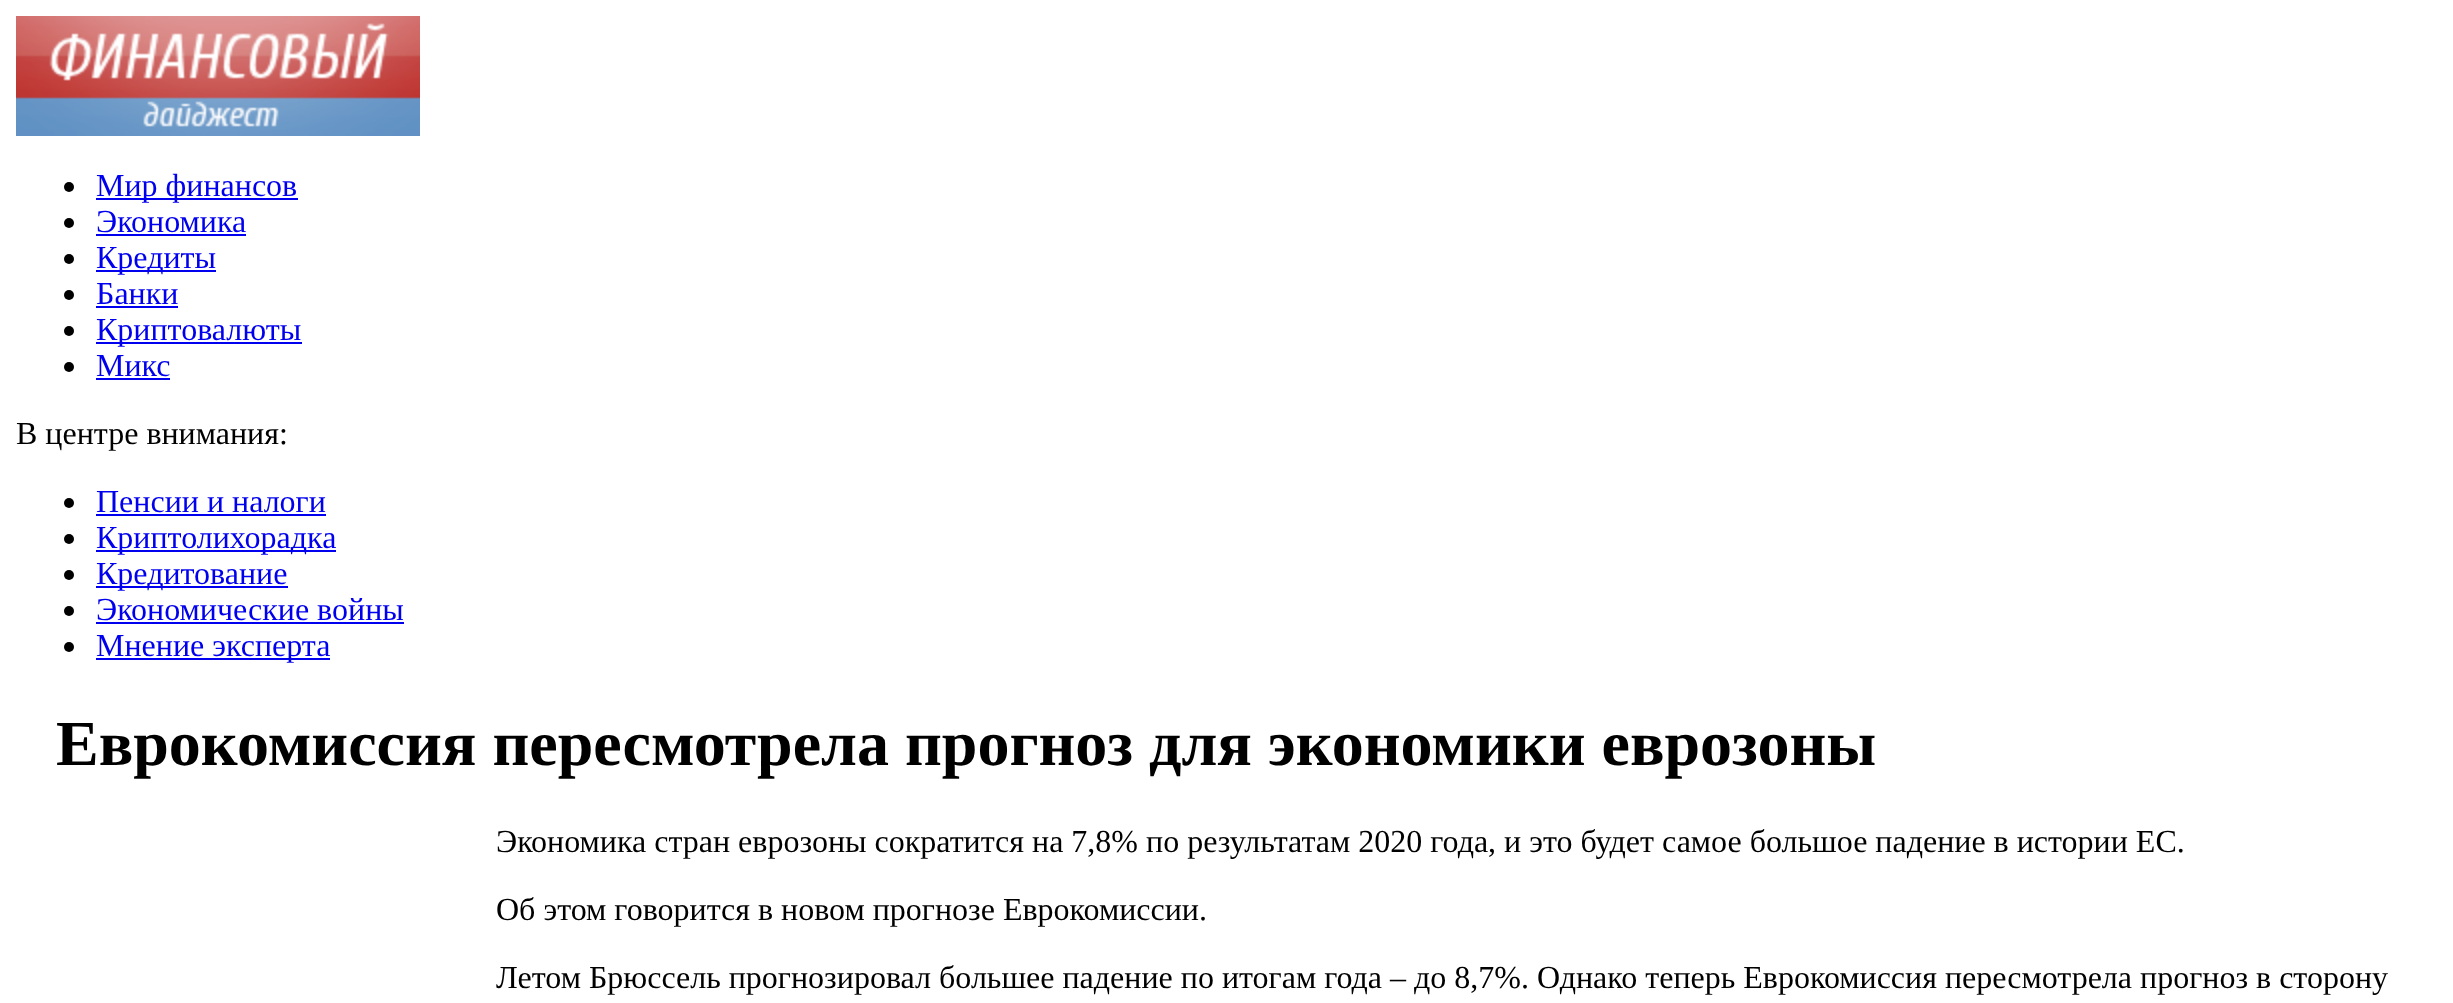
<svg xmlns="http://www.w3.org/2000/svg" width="2453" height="1003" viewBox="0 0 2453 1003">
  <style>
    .t1 { font: 32px Liberation Serif; fill: #00e; }
    .t2 { font: 32px Liberation Serif; fill: #000; }
    .t3 { font: bold 64px Liberation Serif; fill: #000; }
  </style>
  <rect width="100%" height="100%" fill="#fff"/>
  <image x="16" y="16" width="404" height="120" href="images/1.png"/>
  <circle cx="69" cy="187" r="5" fill="#000"/>
  <rect x="96" y="198" width="202" height="2" fill="#00e"/>
  <text x="96" y="196" class="t1">Мир финансов</text>
  <circle cx="69" cy="223" r="5" fill="#000"/>
  <text x="96" y="232" class="t1">Экономика</text>
  <rect x="96" y="234" width="150" height="2" fill="#00e"/>
  <circle cx="69" cy="259" r="5" fill="#000"/>
  <rect x="96" y="270" width="120" height="2" fill="#00e"/>
  <text x="96" y="268" class="t1">Кредиты</text>
  <circle cx="69" cy="295" r="5" fill="#000"/>
  <text x="96" y="304" class="t1">Банки</text>
  <rect x="96" y="306" width="82" height="2" fill="#00e"/>
  <circle cx="69" cy="331" r="5" fill="#000"/>
  <rect x="96" y="342" width="206" height="2" fill="#00e"/>
  <text x="96" y="340" class="t1">Криптовалюты</text>
  <circle cx="69" cy="367" r="5" fill="#000"/>
  <text x="96" y="376" class="t1">Микс</text>
  <rect x="96" y="378" width="74" height="2" fill="#00e"/>
  <text x="16" y="444" class="t2">В центре внимания:</text>
  <circle cx="69" cy="503" r="5" fill="#000"/>
  <text x="96" y="512" class="t1">Пенсии и налоги</text>
  <rect x="96" y="514" width="230" height="2" fill="#00e"/>
  <circle cx="69" cy="539" r="5" fill="#000"/>
  <rect x="96" y="550" width="240" height="2" fill="#00e"/>
  <text x="96" y="548" class="t1">Криптолихорадка</text>
  <circle cx="69" cy="575" r="5" fill="#000"/>
  <rect x="96" y="586" width="192" height="2" fill="#00e"/>
  <text x="96" y="584" class="t1">Кредитование</text>
  <circle cx="69" cy="611" r="5" fill="#000"/>
  <text x="96" y="620" class="t1">Экономические войны</text>
  <rect x="96" y="622" width="308" height="2" fill="#00e"/>
  <circle cx="69" cy="647" r="5" fill="#000"/>
  <rect x="96" y="658" width="234" height="2" fill="#00e"/>
  <text x="96" y="656" class="t1">Мнение эксперта</text>
  <text x="56" y="765" class="t3">Еврокомиссия пересмотрела прогноз для экономики еврозоны</text>
  <text x="496" y="852" class="t2">Экономика стран еврозоны сократится на 7,8% по результатам 2020 года, и это будет самое большое падение в истории ЕС.</text>
  <text x="496" y="920" class="t2">Об этом говорится в новом прогнозе Еврокомиссии.</text>
  <text x="496" y="988" class="t2">Летом Брюссель прогнозировал большее падение по итогам года – до 8,7%. Однако теперь Еврокомиссия пересмотрела прогноз в сторону</text>
</svg>
